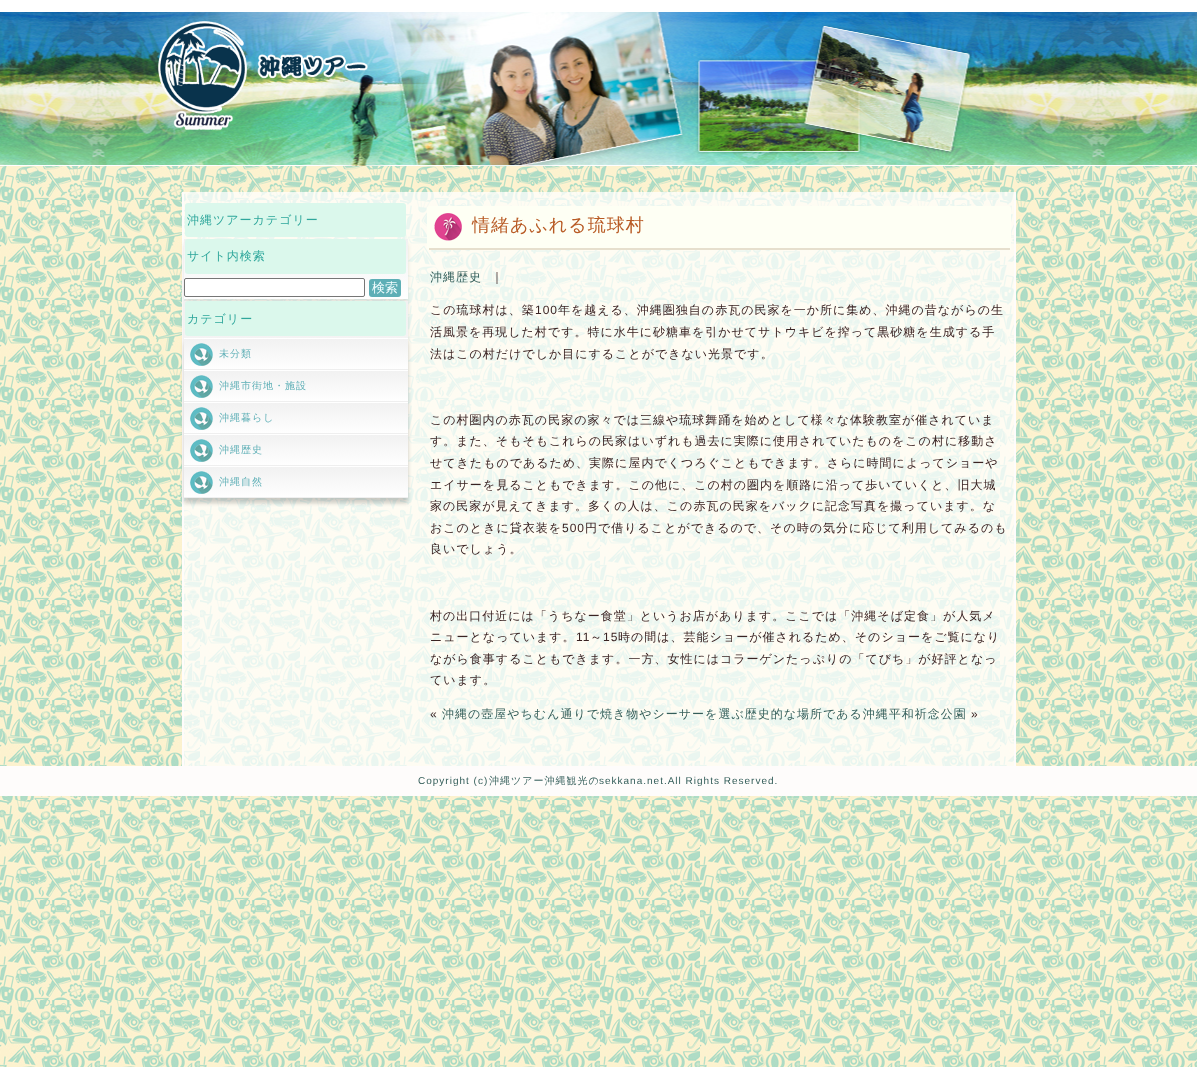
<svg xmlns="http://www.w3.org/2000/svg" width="1197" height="1067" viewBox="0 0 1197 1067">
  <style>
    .t1 { font: 500 12px WenQuanYi Zen Hei; letter-spacing: 1px; fill: #2fa79c; }
    .t2 { font: 500 13px WenQuanYi Zen Hei; fill: #f3feff; }
    .t3 { font: 500 10px WenQuanYi Zen Hei; letter-spacing: 1px; fill: #5eafb6; }
    .t4 { font: 500 18px WenQuanYi Zen Hei; letter-spacing: 1px; fill: #b85a24; }
    .t5 { font: 500 12px WenQuanYi Zen Hei; letter-spacing: 1px; fill: #345e5a; }
    .t6 { font: 500 12px WenQuanYi Zen Hei; letter-spacing: 1px; fill: #3a2323; }
    .t7 { font: 12px Liberation Sans; letter-spacing: 1px; fill: #3a2323; }
    .t8 { font: 10px Liberation Sans; letter-spacing: 1px; fill: #345e5a; }
    .t9 { font: 500 10px WenQuanYi Zen Hei; letter-spacing: 1px; fill: #345e5a; }
  </style>
  <defs>
    <linearGradient id="g1" gradientUnits="userSpaceOnUse" x1="296" y1="239" x2="296" y2="299"><stop offset="0" stop-color="#f1f1f1"/><stop offset="1" stop-color="#fff"/></linearGradient>
    <linearGradient id="g2" gradientUnits="userSpaceOnUse" x1="296" y1="301" x2="296" y2="498"><stop offset="0" stop-color="#f1f1f1"/><stop offset="1" stop-color="#fff"/></linearGradient>
    <linearGradient id="g3" gradientUnits="userSpaceOnUse" x1="296" y1="338" x2="296" y2="370"><stop offset="0" stop-color="#f1f1f1"/><stop offset="1" stop-color="#fff"/></linearGradient>
    <linearGradient id="g4" gradientUnits="userSpaceOnUse" x1="296" y1="370" x2="296" y2="402"><stop offset="0" stop-color="#f1f1f1"/><stop offset="1" stop-color="#fff"/></linearGradient>
    <linearGradient id="g5" gradientUnits="userSpaceOnUse" x1="296" y1="402" x2="296" y2="434"><stop offset="0" stop-color="#f1f1f1"/><stop offset="1" stop-color="#fff"/></linearGradient>
    <linearGradient id="g6" gradientUnits="userSpaceOnUse" x1="296" y1="434" x2="296" y2="466"><stop offset="0" stop-color="#f1f1f1"/><stop offset="1" stop-color="#fff"/></linearGradient>
    <linearGradient id="g7" gradientUnits="userSpaceOnUse" x1="296" y1="466" x2="296" y2="498"><stop offset="0" stop-color="#f1f1f1"/><stop offset="1" stop-color="#fff"/></linearGradient>
  </defs>
  <rect width="100%" height="100%" fill="#fff"/>
  <image x="0" y="166" width="1197" height="901" href="images/1.png"/>
  <image x="0" y="12" width="1197" height="154" href="images/2.png"/>
  <image x="158" y="21" width="210" height="109" href="images/3.png"/>
  <rect x="184" y="192" width="830" height="574" fill="#ffffffbd"/>
  <rect x="1014" y="192" width="2" height="574" fill="#fefcfb"/>
  <rect x="182" y="192" width="2" height="574" fill="#fefcfb"/>
  <rect x="185" y="203" width="221" height="34" rx="3" fill="#dbf8ec"/>
  <text x="187" y="224" class="t1">沖縄ツアーカテゴリー</text>
  <rect x="184" y="244" width="224" height="259" fill="#0000001a" filter="blur(2px)"/>
  <rect x="184" y="299" width="224" height="2" fill="#ffffff1a"/>
  <rect x="184" y="239" width="224" height="60" fill="url(#g1)"/>
  <rect x="185" y="239" width="221" height="35" rx="3" fill="#dbf8ec"/>
  <text x="187" y="260" class="t1">サイト内検索</text>
  <rect x="184.5" y="278.5" width="180" height="18" rx="1.5" fill="#fff" stroke="#767676"/>
  <rect x="369" y="279" width="32" height="18" rx="3" fill="#5eafb6"/>
  <text x="372" y="292" class="t2">検索</text>
  <rect x="184" y="301" width="224" height="37" fill="url(#g2)"/>
  <rect x="185" y="301" width="221" height="35" rx="3" fill="#dbf8ec"/>
  <text x="187" y="323" class="t1">カテゴリー</text>
  <rect x="184" y="343" width="224" height="160" fill="#0000001a" filter="blur(2px)"/>
  <rect x="184" y="339" width="224" height="30" fill="url(#g3)"/>
  <image x="190" y="343" width="23" height="23" href="images/4.png"/>
  <rect x="184" y="338" width="224" height="1" fill="#fff"/>
  <rect x="184" y="369" width="224" height="1" fill="#efefef"/>
  <text x="219" y="357" class="t3">未分類</text>
  <rect x="184" y="371" width="224" height="30" fill="url(#g4)"/>
  <image x="190" y="375" width="23" height="23" href="images/4.png"/>
  <rect x="184" y="370" width="224" height="1" fill="#fff"/>
  <rect x="184" y="401" width="224" height="1" fill="#efefef"/>
  <text x="219" y="389" class="t3">沖縄市街地・施設</text>
  <rect x="184" y="403" width="224" height="30" fill="url(#g5)"/>
  <image x="190" y="407" width="23" height="23" href="images/4.png"/>
  <rect x="184" y="402" width="224" height="1" fill="#fff"/>
  <rect x="184" y="433" width="224" height="1" fill="#efefef"/>
  <text x="219" y="421" class="t3">沖縄暮らし</text>
  <rect x="184" y="435" width="224" height="30" fill="url(#g6)"/>
  <image x="190" y="439" width="23" height="23" href="images/4.png"/>
  <rect x="184" y="434" width="224" height="1" fill="#fff"/>
  <rect x="184" y="465" width="224" height="1" fill="#efefef"/>
  <text x="219" y="453" class="t3">沖縄歴史</text>
  <rect x="184" y="467" width="224" height="30" fill="url(#g7)"/>
  <image x="190" y="471" width="23" height="23" href="images/4.png"/>
  <rect x="184" y="466" width="224" height="1" fill="#fff"/>
  <rect x="184" y="497" width="224" height="1" fill="#efefef"/>
  <text x="219" y="485" class="t3">沖縄自然</text>
  <rect x="427" y="206" width="584" height="44" rx="3" fill="#fefff4"/>
  <image x="434" y="213" width="28" height="28" href="images/5.png"/>
  <rect x="429" y="248" width="581" height="2" fill="#e6dfcd"/>
  <text x="472" y="231" class="t4">情緒あふれる琉球村</text>
  <text x="430" y="281" class="t5">沖縄歴史</text>
  <text x="491" y="281" class="t6">｜</text>
  <text x="430" y="314" class="t6">この琉球村は、築</text>
  <text x="535" y="314" class="t7">100</text>
  <text x="558" y="314" class="t6">年を越える、沖縄圏独自の赤瓦の民家を一か所に集め、沖縄の昔ながらの生</text>
  <text x="430" y="336" class="t6">活風景を再現した村です。特に水牛に砂糖車を引かせてサトウキビを搾って黒砂糖を生成する手</text>
  <text x="430" y="358" class="t6">法はこの村だけでしか目にすることができない光景です。</text>
  <text x="430" y="424" class="t6">この村圏内の赤瓦の民家の家々では三線や琉球舞踊を始めとして様々な体験教室が催されていま</text>
  <text x="430" y="445" class="t6">す。また、そもそもこれらの民家はいずれも過去に実際に使用されていたものをこの村に移動さ</text>
  <text x="430" y="467" class="t6">せてきたものであるため、実際に屋内でくつろぐこともできます。さらに時間によってショーや</text>
  <text x="430" y="489" class="t6">エイサーを見ることもできます。この他に、この村の圏内を順路に沿って歩いていくと、旧大城</text>
  <text x="430" y="510" class="t6">家の民家が見えてきます。多くの人は、この赤瓦の民家をバックに記念写真を撮っています。な</text>
  <text x="430" y="532" class="t6">おこのときに貸衣装を</text>
  <text x="562" y="532" class="t7">500</text>
  <text x="585" y="532" class="t6">円で借りることができるので、その時の気分に応じて利用してみるのも</text>
  <text x="430" y="553" class="t6">良いでしょう。</text>
  <text x="430" y="620" class="t6">村の出口付近には「うちなー食堂」というお店があります。ここでは「沖縄そば定食」が人気メ</text>
  <text x="430" y="641" class="t6">ニューとなっています。</text>
  <text x="576" y="641" class="t7">11</text>
  <text x="590" y="641" class="t6">～</text>
  <text x="603" y="641" class="t7">15</text>
  <text x="618" y="641" class="t6">時の間は、芸能ショーが催されるため、そのショーをご覧になり</text>
  <text x="430" y="663" class="t6">ながら食事することもできます。一方、女性にはコラーゲンたっぷりの「てびち」が好評となっ</text>
  <text x="430" y="684" class="t6">ています。</text>
  <text x="430" y="718" class="t7">«</text>
  <text x="442" y="718" class="t5">沖縄の壺屋やちむん通りで焼き物やシーサーを選ぶ歴史的な場所である沖縄平和祈念公園</text>
  <text x="971" y="718" class="t7">»</text>
  <rect x="0" y="766" width="1197" height="30" fill="#fefcfb"/>
  <text x="418" y="784" class="t8">Copyright (c)</text>
  <text x="489" y="784" class="t9">沖縄ツアー沖縄観光の</text>
  <text x="599" y="784" class="t8">sekkana.net.All Rights Reserved.</text>
</svg>
